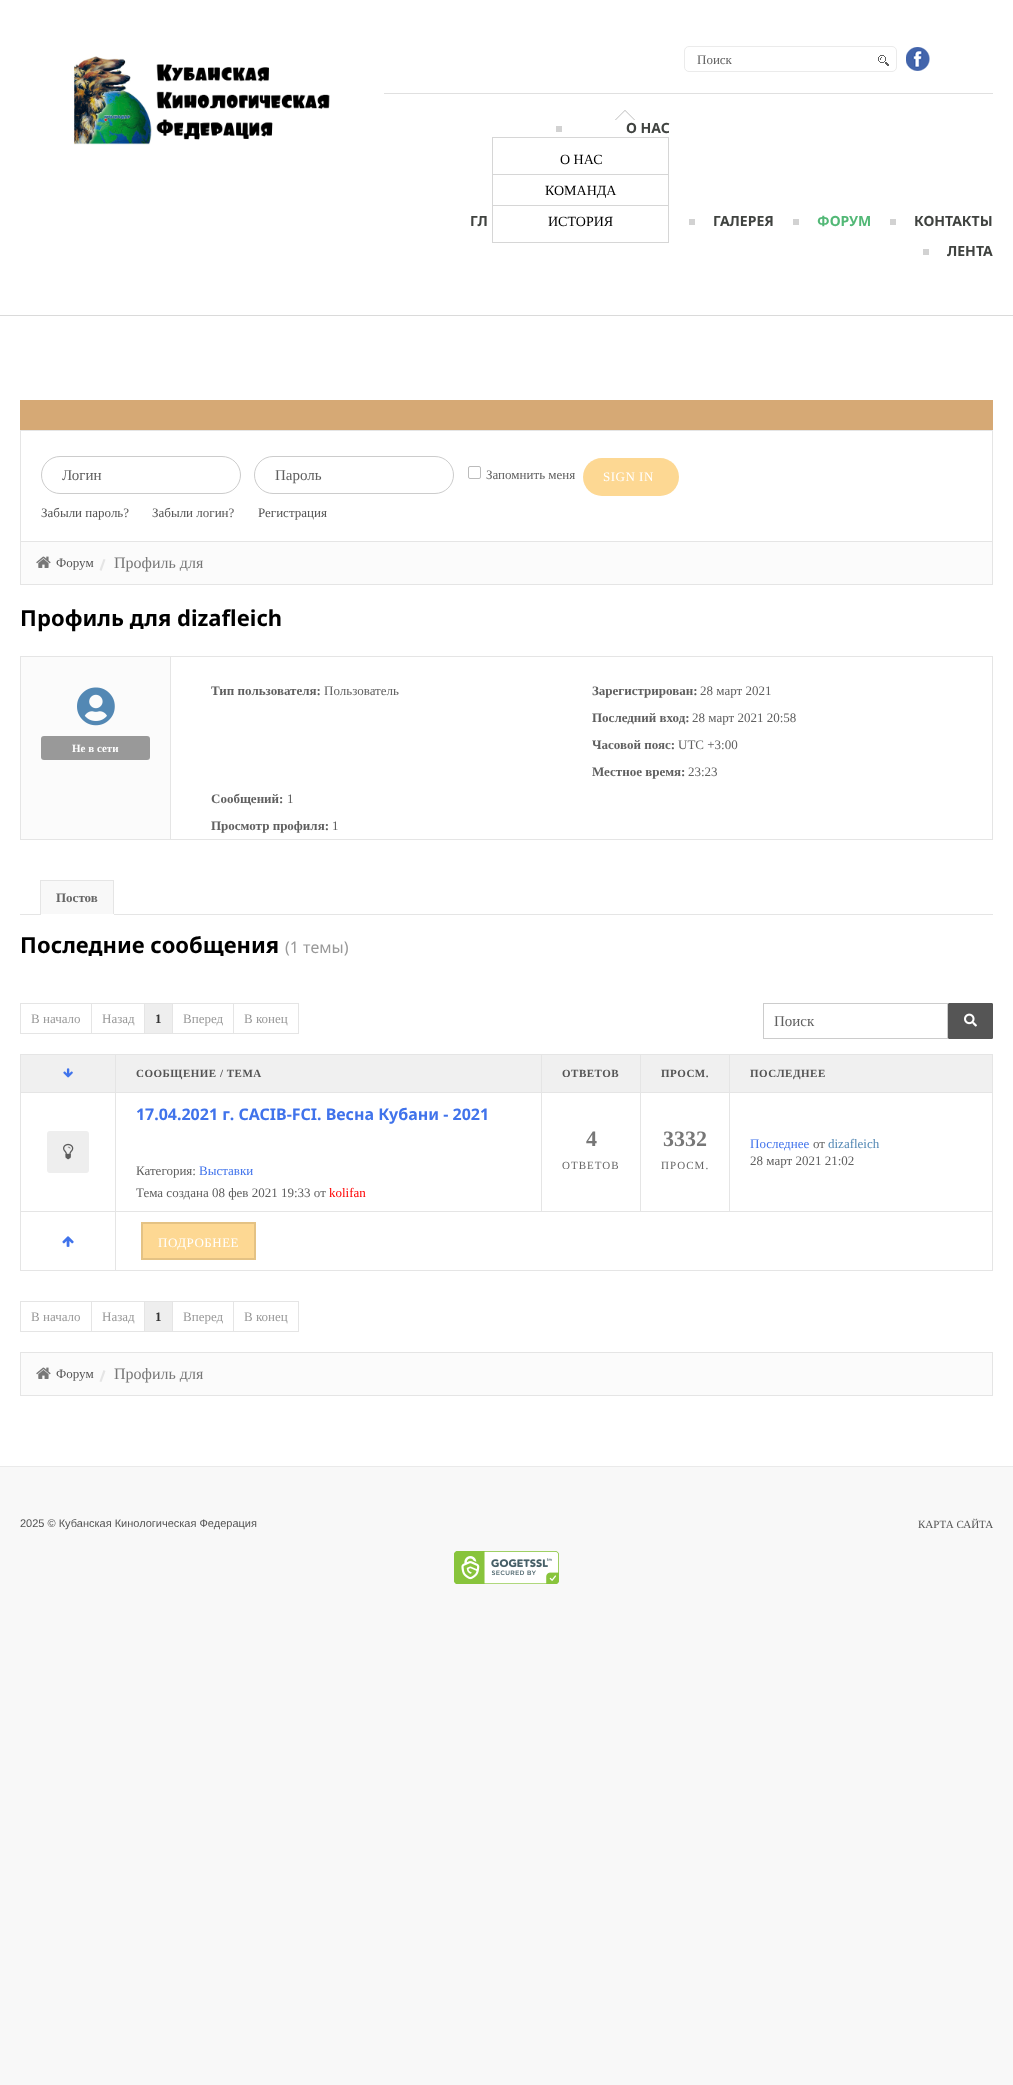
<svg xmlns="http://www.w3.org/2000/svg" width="1013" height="2085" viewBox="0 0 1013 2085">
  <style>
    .t1 { font: 13px Liberation Serif; fill: #606060; }
    .t2 { font: bold 14px 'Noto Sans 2'; fill: #404340; }
    .t3 { font: 14px Liberation Serif; fill: #000; }
    .t4 { font: bold 14px 'Noto Sans 2'; fill: #52b876; }
    .t5 { font: 15px Liberation Serif; fill: #606060; }
    .t6 { font: 13px Liberation Serif; letter-spacing: 0.5px; fill: #fff; }
    .t7 { font: 13px Liberation Serif; fill: #545454; }
    .t8 { font: 16px Liberation Serif; fill: #777; }
    .t9 { font: bold 22px Noto Sans; fill: #000; }
    .t10 { font: bold 22px 'Noto Sans 2'; fill: #000; }
    .t11 { font: bold 11px Liberation Serif; fill: #fff; }
    .t12 { font: bold 13px Liberation Serif; fill: #606060; }
    .t13 { font: bold 13px Liberation Serif; fill: #666; }
    .t14 { font: 16px Noto Sans; fill: #999; }
    .t15 { font: 13px Liberation Serif; fill: #999; }
    .t16 { font: bold 13px Liberation Serif; fill: #333; }
    .t17 { font: bold 11px Liberation Serif; letter-spacing: 0.5px; fill: #545454; }
    .t18 { font: bold 16px Noto Sans; fill: #4073eb; }
    .t19 { font: bold 16px 'Noto Sans 2'; fill: #4073eb; }
    .t20 { font: 13px Liberation Serif; fill: #4073eb; }
    .t21 { font: 13px Liberation Serif; fill: #f00; }
    .t22 { font: bold 22px Liberation Serif; fill: #777; }
    .t23 { font: 11px Liberation Serif; letter-spacing: 1px; fill: #666; }
    .t24 { font: 13px Liberation Serif; fill: #5388b4; }
    .t25 { font: 11px Liberation Sans; fill: #545454; }
    .t26 { font: 11px Liberation Serif; fill: #545454; }
  </style>
  <rect width="100%" height="100%" fill="#f8f8f8"/>
  <rect x="0" y="0" width="1013" height="1466" fill="#fff"/>
  <rect x="0" y="315" width="1013" height="1" fill="#dadada"/>
  <image x="73" y="56" width="257" height="89" href="images/1.png"/>
  <rect x="684.5" y="46.5" width="212" height="25" rx="4.5" fill="none" stroke="#ebebeb"/>
  <text x="697" y="64" class="t1">Поиск</text>
  <image x="878" y="55" width="11" height="11" href="images/2.png"/>
  <image x="906" y="47" width="24" height="24" href="images/3.png"/>
  <rect x="384" y="93" width="609" height="1" fill="#e0e0e0"/>
  <text x="470" y="226" class="t2">ГЛ</text>
  <rect x="556" y="126" width="6" height="6" fill="#d2d2d2"/>
  <text x="626" y="133" class="t2">О НАС</text>
  <rect x="492.5" y="137.5" width="176" height="105" fill="none" stroke="#d6d6d6"/>
  <image x="615" y="110" width="20" height="10" href="images/4.png"/>
  <rect x="493" y="174" width="175" height="1" fill="#d6d6d6"/>
  <text x="560" y="164" class="t3">О НАС</text>
  <rect x="493" y="205" width="175" height="1" fill="#d6d6d6"/>
  <text x="545" y="195" class="t3">КОМАНДА</text>
  <text x="548" y="226" class="t3">ИСТОРИЯ</text>
  <rect x="689" y="219" width="6" height="6" fill="#d2d2d2"/>
  <text x="713" y="226" class="t2">ГАЛЕРЕЯ</text>
  <rect x="793" y="219" width="6" height="6" fill="#d2d2d2"/>
  <text x="817" y="226" class="t4">ФОРУМ</text>
  <rect x="890" y="219" width="6" height="6" fill="#d2d2d2"/>
  <text x="914" y="226" class="t2">КОНТАКТЫ</text>
  <rect x="923" y="249" width="6" height="6" fill="#d2d2d2"/>
  <text x="947" y="256" class="t2">ЛЕНТА</text>
  <rect x="20" y="400" width="973" height="30" fill="#d6a975"/>
  <rect x="20" y="430" width="973" height="1" fill="#e5e5e5"/>
  <rect x="992" y="430" width="1" height="111" fill="#e5e5e5"/>
  <rect x="20" y="430" width="1" height="111" fill="#e5e5e5"/>
  <rect x="41.5" y="456.5" width="199" height="37" rx="18.5" fill="none" stroke="#ccc"/>
  <text x="62" y="480" class="t5">Логин</text>
  <rect x="254.5" y="456.5" width="199" height="37" rx="18.5" fill="none" stroke="#ccc"/>
  <text x="275" y="480" class="t5">Пароль</text>
  <rect x="468.5" y="466.5" width="12" height="12" rx="1.5" fill="none" stroke="#bbb"/>
  <text x="486" y="479" class="t1">Запомнить меня</text>
  <rect x="583" y="458" width="96" height="38" rx="19" fill="#fdd893"/>
  <text x="603" y="481" class="t6">SIGN IN</text>
  <text x="41" y="517" class="t7">Забыли пароль?</text>
  <text x="152" y="517" class="t7">Забыли логин?</text>
  <text x="258" y="517" class="t7">Регистрация</text>
  <rect x="20.5" y="541.5" width="972" height="43" fill="#fbfbfb" stroke="#e5e5e5"/>
  <image x="36" y="556" width="15" height="12" href="images/5.png"/>
  <text x="56" y="567" class="t7">Форум</text>
  <path d="M103.5 559L105.5 559.5L101.5 571L99.5 570Z" fill="#e5e5e5"/>
  <text x="114" y="568" class="t8">Профиль для</text>
  <text x="20" y="626" class="t9">П</text>
  <text x="37" y="626" class="t10">рофиль для dizafleich</text>
  <rect x="20.5" y="656.5" width="972" height="183" fill="none" stroke="#e5e5e5"/>
  <rect x="21" y="657" width="149" height="182" fill="#fbfbfb"/>
  <rect x="170" y="657" width="1" height="182" fill="#e5e5e5"/>
  <image x="77" y="687" width="38" height="39" href="images/6.png"/>
  <rect x="41" y="736" width="109" height="24" rx="3" fill="#999"/>
  <text x="72" y="752" class="t11">Не в сети</text>
  <text x="211" y="695" class="t12">Тип пользователя:</text>
  <text x="324" y="695" class="t1">Пользователь</text>
  <text x="592" y="695" class="t12">Зарегистрирован:</text>
  <text x="700" y="695" class="t1">28 март 2021</text>
  <text x="592" y="722" class="t12">Последний вход:</text>
  <text x="692" y="722" class="t1">28 март 2021 20:58</text>
  <text x="592" y="749" class="t12">Часовой пояс:</text>
  <text x="678" y="749" class="t1">UTC +3:00</text>
  <text x="592" y="776" class="t12">Местное время:</text>
  <text x="688" y="776" class="t1">23:23</text>
  <text x="211" y="803" class="t12">Сообщений:</text>
  <text x="287" y="803" class="t1">1</text>
  <text x="211" y="830" class="t12">Просмотр профиля:</text>
  <text x="332" y="830" class="t1">1</text>
  <rect x="20" y="914" width="973" height="1" fill="#e5e5e5"/>
  <rect x="41" y="881" width="72" height="33" fill="#f8f8f8"/>
  <rect x="40" y="880" width="74" height="1" fill="#e5e5e5"/>
  <rect x="113" y="880" width="1" height="35" fill="#e5e5e5"/>
  <rect x="40" y="914" width="74" height="1" fill="#fff"/>
  <rect x="40" y="880" width="1" height="35" fill="#e5e5e5"/>
  <text x="56" y="902" class="t13">Постов</text>
  <text x="20" y="953" class="t9">П</text>
  <text x="37" y="953" class="t10">оследние сообщения</text>
  <text x="285" y="953" class="t14">(1 темы)</text>
  <rect x="20" y="1003" width="213" height="1" fill="#e5e5e5"/>
  <rect x="20" y="1033" width="213" height="1" fill="#e5e5e5"/>
  <rect x="20" y="1003" width="1" height="31" fill="#e5e5e5"/>
  <text x="31" y="1023" class="t15">В начало</text>
  <rect x="91" y="1003" width="1" height="31" fill="#e5e5e5"/>
  <text x="102" y="1023" class="t15">Назад</text>
  <rect x="145" y="1004" width="27" height="29" fill="#eee"/>
  <rect x="144" y="1003" width="1" height="31" fill="#e5e5e5"/>
  <text x="155" y="1023" class="t16">1</text>
  <rect x="172" y="1003" width="1" height="31" fill="#e5e5e5"/>
  <text x="183" y="1023" class="t15">Вперед</text>
  <rect x="233.5" y="1003.5" width="65" height="30" fill="none" stroke="#e5e5e5"/>
  <text x="244" y="1023" class="t15">В конец</text>
  <rect x="763.5" y="1003.5" width="184" height="35" fill="none" stroke="#ccc"/>
  <text x="774" y="1026" class="t5">Поиск</text>
  <rect x="948.5" y="1003.5" width="44" height="35" rx="0.5" fill="#555" stroke="#555"/>
  <image x="964" y="1013" width="13" height="14" href="images/7.png"/>
  <rect x="21" y="1055" width="94" height="37" fill="#f0f0f0"/>
  <rect x="729" y="1054" width="264" height="1" fill="#e5e5e5"/>
  <rect x="729" y="1092" width="264" height="1" fill="#e5e5e5"/>
  <rect x="992" y="1092" width="1" height="120" fill="#e5e5e5"/>
  <rect x="729" y="1211" width="264" height="1" fill="#e5e5e5"/>
  <rect x="729" y="1092" width="1" height="120" fill="#e5e5e5"/>
  <rect x="640" y="1092" width="90" height="1" fill="#e5e5e5"/>
  <rect x="729" y="1054" width="1" height="39" fill="#e5e5e5"/>
  <rect x="640" y="1054" width="90" height="1" fill="#e5e5e5"/>
  <rect x="640" y="1211" width="90" height="1" fill="#e5e5e5"/>
  <rect x="640" y="1092" width="1" height="120" fill="#e5e5e5"/>
  <rect x="541" y="1092" width="100" height="1" fill="#e5e5e5"/>
  <rect x="640" y="1054" width="1" height="39" fill="#e5e5e5"/>
  <rect x="541" y="1054" width="100" height="1" fill="#e5e5e5"/>
  <rect x="541" y="1211" width="100" height="1" fill="#e5e5e5"/>
  <rect x="541" y="1092" width="1" height="120" fill="#e5e5e5"/>
  <rect x="115" y="1092" width="427" height="1" fill="#e5e5e5"/>
  <rect x="541" y="1054" width="1" height="39" fill="#e5e5e5"/>
  <rect x="115" y="1054" width="427" height="1" fill="#e5e5e5"/>
  <rect x="115" y="1211" width="427" height="1" fill="#e5e5e5"/>
  <rect x="115" y="1092" width="1" height="120" fill="#e5e5e5"/>
  <rect x="20" y="1092" width="96" height="1" fill="#e5e5e5"/>
  <rect x="115" y="1054" width="1" height="39" fill="#e5e5e5"/>
  <rect x="20" y="1054" width="96" height="1" fill="#e5e5e5"/>
  <rect x="20" y="1211" width="96" height="1" fill="#e5e5e5"/>
  <rect x="20" y="1092" width="1" height="120" fill="#e5e5e5"/>
  <rect x="20" y="1054" width="1" height="39" fill="#e5e5e5"/>
  <image x="63" y="1068" width="10" height="10" href="images/8.png"/>
  <rect x="116" y="1055" width="425" height="37" fill="#f0f0f0"/>
  <text x="136" y="1077" class="t17">СООБЩЕНИЕ / ТЕМА</text>
  <rect x="542" y="1055" width="98" height="37" fill="#f0f0f0"/>
  <text x="562" y="1077" class="t17">ОТВЕТОВ</text>
  <rect x="641" y="1055" width="88" height="37" fill="#f0f0f0"/>
  <text x="661" y="1077" class="t17">ПРОСМ.</text>
  <rect x="730" y="1055" width="262" height="37" fill="#f0f0f0"/>
  <rect x="992" y="1054" width="1" height="39" fill="#e5e5e5"/>
  <text x="750" y="1077" class="t17">ПОСЛЕДНЕЕ</text>
  <rect x="47" y="1131" width="42" height="42" rx="3" fill="#eee"/>
  <image x="63" y="1143" width="11" height="17" href="images/9.png"/>
  <text x="136" y="1120" class="t18">1</text>
  <text x="145" y="1120" class="t19">7.04.2021 г. CACIB-FCI. Весна Кубани - 2021</text>
  <text x="136" y="1175" class="t1">Категория:</text>
  <text x="199" y="1175" class="t20">Выставки</text>
  <text x="136" y="1197" class="t1">Тема создана 08 фев 2021 19:33 от</text>
  <text x="329" y="1197" class="t21">kolifan</text>
  <text x="586" y="1146" class="t22">4</text>
  <text x="562" y="1169" class="t23">ОТВЕТОВ</text>
  <text x="663" y="1146" class="t22">3332</text>
  <text x="661" y="1169" class="t23">ПРОСМ.</text>
  <text x="750" y="1148" class="t20">Последнее</text>
  <text x="813" y="1148" class="t1">от</text>
  <text x="828" y="1148" class="t24">dizafleich</text>
  <text x="750" y="1165" class="t1">28 март 2021 21:02</text>
  <rect x="992" y="1211" width="1" height="60" fill="#e5e5e5"/>
  <rect x="115" y="1270" width="878" height="1" fill="#e5e5e5"/>
  <rect x="115" y="1211" width="1" height="60" fill="#e5e5e5"/>
  <rect x="20" y="1270" width="96" height="1" fill="#e5e5e5"/>
  <rect x="20" y="1211" width="1" height="60" fill="#e5e5e5"/>
  <image x="62" y="1236" width="12" height="11" href="images/10.png"/>
  <rect x="142" y="1223" width="113" height="36" fill="#fdd893" stroke="#e4c284" stroke-width="2"/>
  <text x="158" y="1247" class="t6">ПОДРОБНЕЕ</text>
  <rect x="20" y="1301" width="213" height="1" fill="#e5e5e5"/>
  <rect x="20" y="1331" width="213" height="1" fill="#e5e5e5"/>
  <rect x="20" y="1301" width="1" height="31" fill="#e5e5e5"/>
  <text x="31" y="1321" class="t15">В начало</text>
  <rect x="91" y="1301" width="1" height="31" fill="#e5e5e5"/>
  <text x="102" y="1321" class="t15">Назад</text>
  <rect x="145" y="1302" width="27" height="29" fill="#eee"/>
  <rect x="144" y="1301" width="1" height="31" fill="#e5e5e5"/>
  <text x="155" y="1321" class="t16">1</text>
  <rect x="172" y="1301" width="1" height="31" fill="#e5e5e5"/>
  <text x="183" y="1321" class="t15">Вперед</text>
  <rect x="233.5" y="1301.5" width="65" height="30" fill="none" stroke="#e5e5e5"/>
  <text x="244" y="1321" class="t15">В конец</text>
  <rect x="20.5" y="1352.5" width="972" height="43" fill="#fbfbfb" stroke="#e5e5e5"/>
  <image x="36" y="1367" width="15" height="12" href="images/5.png"/>
  <text x="56" y="1378" class="t7">Форум</text>
  <path d="M103.5 1370L105.5 1371L101.5 1382L99.5 1381.5Z" fill="#e5e5e5"/>
  <text x="114" y="1379" class="t8">Профиль для</text>
  <rect x="0" y="1466" width="1013" height="1" fill="#eaeaea"/>
  <text x="20" y="1527" class="t25">2025 © Кубанская Кинологическая Федерация</text>
  <text x="918" y="1528" class="t26">КАРТА САЙТА</text>
  <image x="454" y="1551" width="105" height="33" href="images/11.png"/>
</svg>
